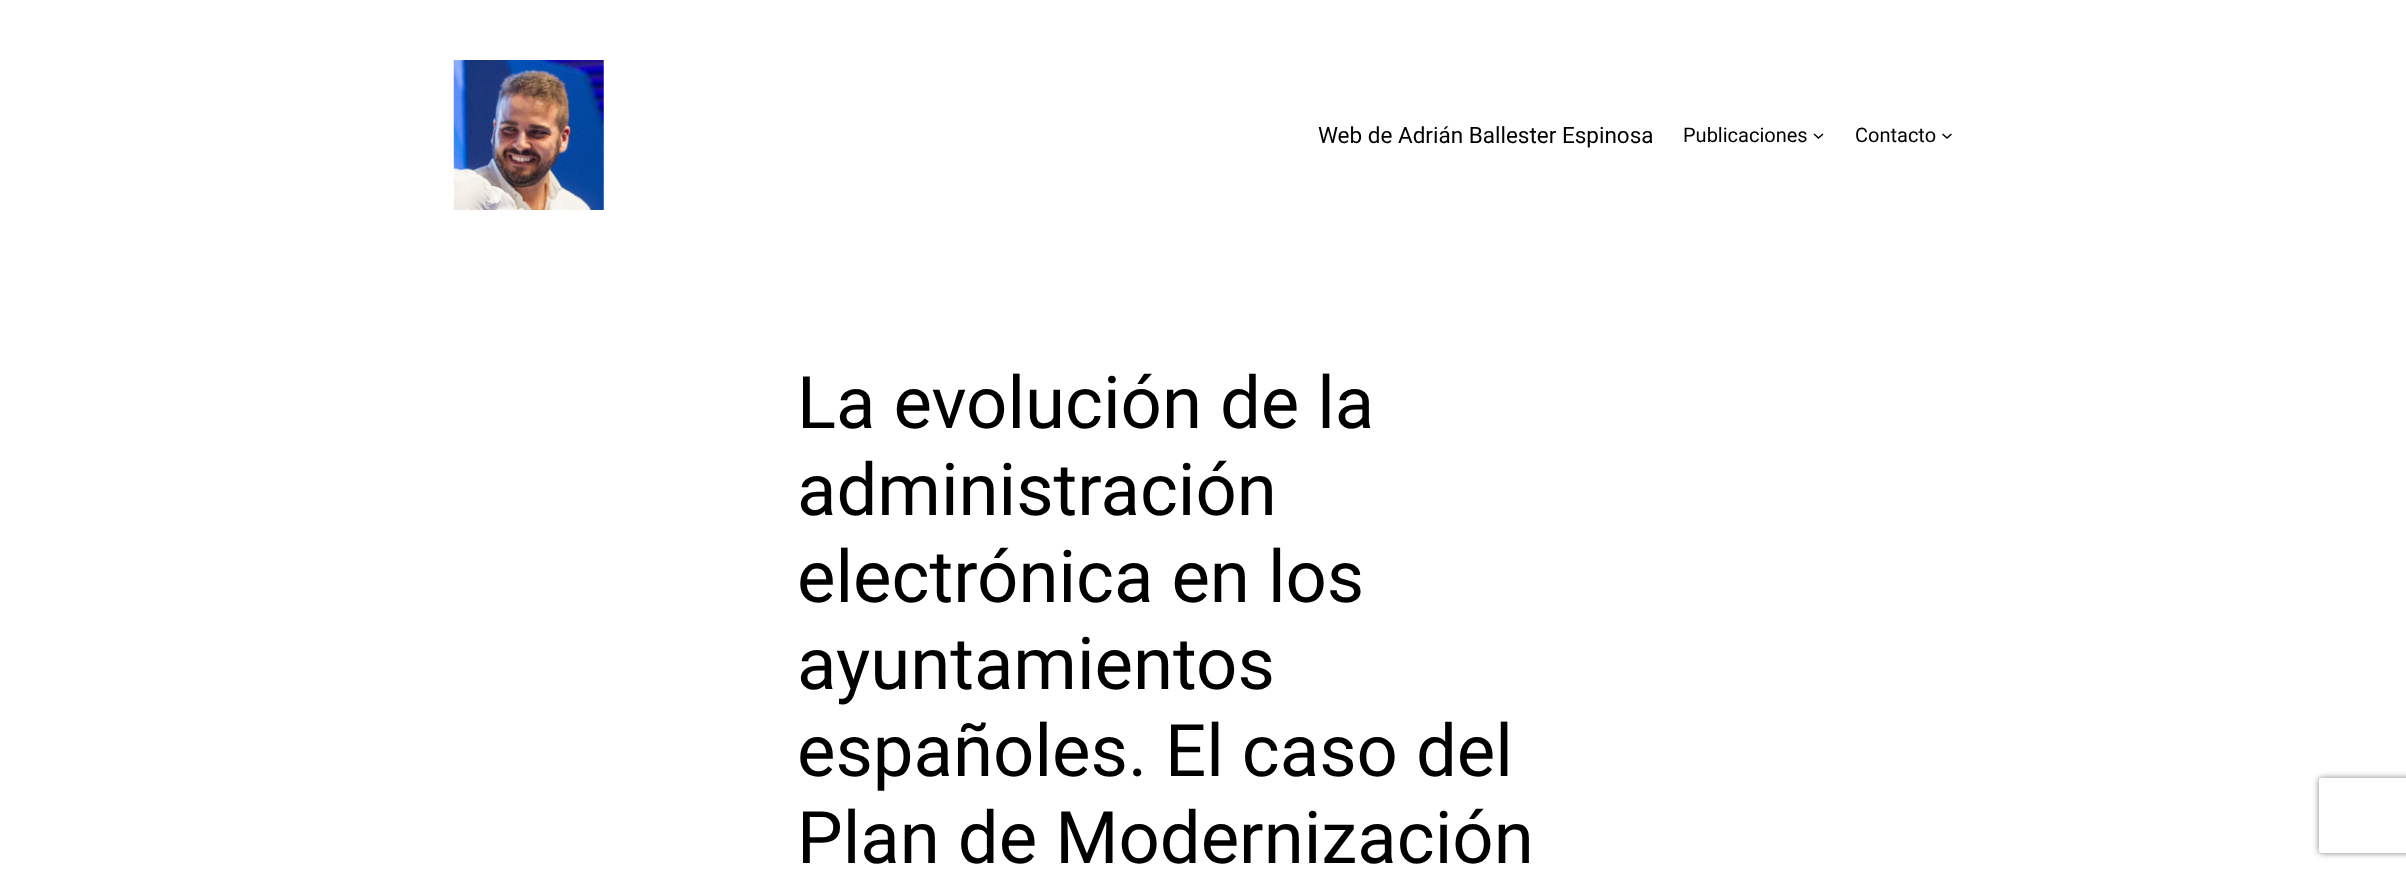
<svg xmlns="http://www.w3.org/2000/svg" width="2406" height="870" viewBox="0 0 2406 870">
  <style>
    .t1 { font: 22.5px Roboto; fill: #000; }
    .t2 { font: 20px Roboto; fill: #000; }
    .t3 { font: 72.5px Roboto; fill: #000; }
  </style>
  <defs>
    <clipPath id="clip1"><path d="M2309 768H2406V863H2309ZM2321.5 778H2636.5C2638 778 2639 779 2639 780.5V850.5C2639 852 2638 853 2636.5 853H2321.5C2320 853 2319 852 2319 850.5V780.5C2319 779 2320 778 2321.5 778Z" clip-rule="evenodd"/></clipPath>
  </defs>
  <rect width="100%" height="100%" fill="#fff"/>
  <image x="453" y="60" width="151" height="150" href="images/1.png"/>
  <text x="1318" y="143" class="t1">Web de Adrián Ballester Espinosa</text>
  <text x="1683" y="142" class="t2">Publicaciones</text>
  <path d="M1814 134L1818.5 138L1823 134" fill="none" stroke="#000" stroke-width="1.5"/>
  <text x="1855" y="142" class="t2">Contacto</text>
  <path d="M1942.5 134L1947 138L1951.5 134" fill="none" stroke="#000" stroke-width="1.5"/>
  <text x="797" y="428" class="t3">La evolución de la</text>
  <text x="797" y="515" class="t3">administración</text>
  <text x="797" y="602" class="t3">electrónica en los</text>
  <text x="797" y="689" class="t3">ayuntamientos</text>
  <text x="797" y="776" class="t3">españoles. El caso del</text>
  <text x="797" y="863" class="t3">Plan de Modernización</text>
  <g clip-path="url(#clip1)">
    <rect x="2319" y="778" width="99" height="75" rx="2.5" fill="#808080" filter="blur(3px)"/>
  </g>
</svg>
